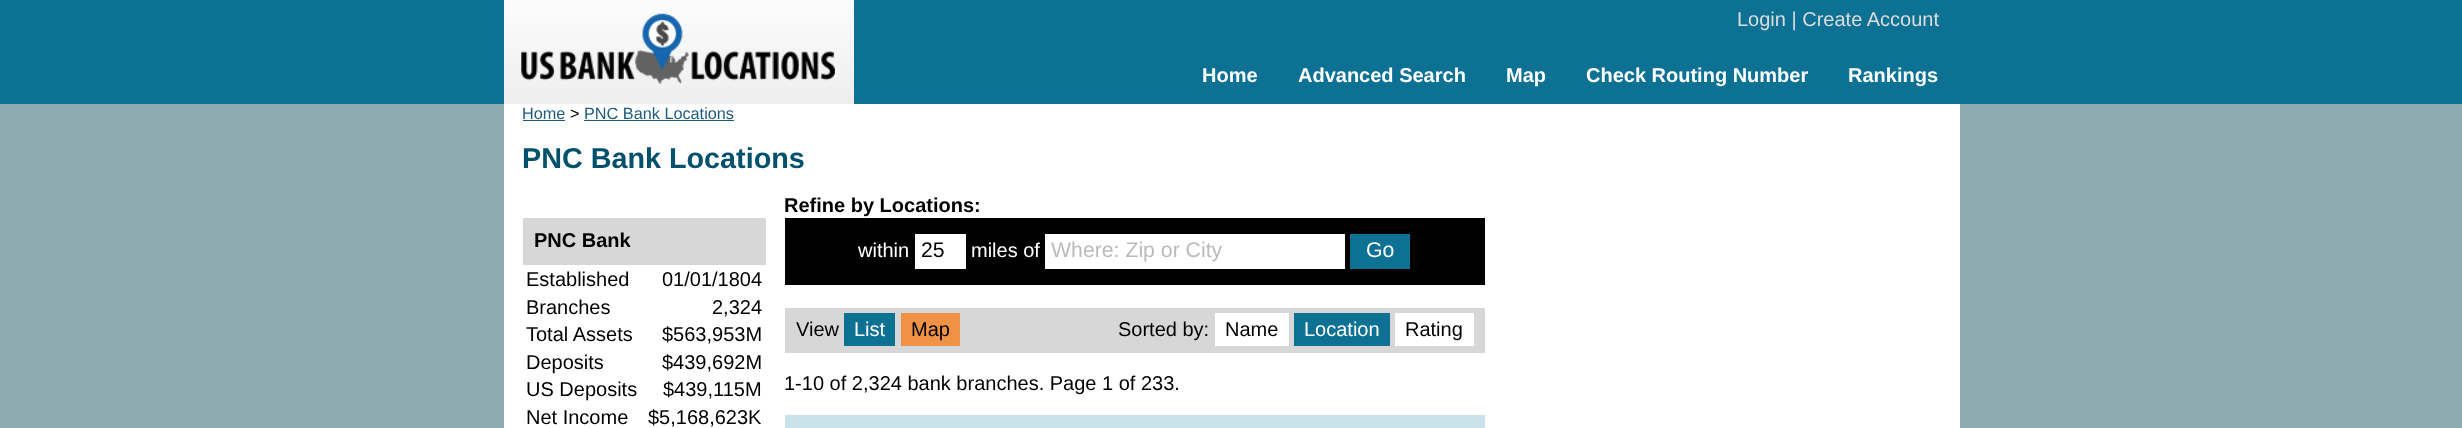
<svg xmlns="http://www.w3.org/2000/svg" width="2462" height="428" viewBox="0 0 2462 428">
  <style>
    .t1 { font: 20px Liberation Sans; fill: #ddd; }
    .t2 { font: bold 20px Liberation Sans; fill: #fff; }
    .t3 { font: 16.25px Liberation Sans; fill: #1e5b7e; }
    .t4 { font: 16.25px Liberation Sans; fill: #000; }
    .t5 { font: bold 28.75px Liberation Sans; fill: #01516d; }
    .t6 { font: bold 20px Liberation Sans; fill: #000; }
    .t7 { font: 20px Liberation Sans; fill: #000; }
    .t8 { font: 20px Liberation Sans; fill: #fff; }
    .t9 { font: 21.25px Liberation Sans; fill: #000; }
    .t10 { font: 21.25px Liberation Sans; fill: #bbb; }
    .t11 { font: 21.25px Liberation Sans; fill: #fff; }
  </style>
  <defs>
    <linearGradient id="g1" gradientUnits="userSpaceOnUse" x1="679" y1="0" x2="679" y2="104"><stop offset="0" stop-color="#fcfcfc"/><stop offset="1" stop-color="#eee"/></linearGradient>
  </defs>
  <rect width="100%" height="100%" fill="#90aab2"/>
  <rect x="0" y="0" width="2462" height="104" fill="#0d7194"/>
  <rect x="504" y="0" width="350" height="104" fill="url(#g1)"/>
  <image x="521" y="13" width="314" height="71" href="images/1.png"/>
  <text x="1737" y="26" class="t1">Login | Create Account</text>
  <text x="1202" y="82" class="t2">Home</text>
  <text x="1298" y="82" class="t2">Advanced Search</text>
  <text x="1506" y="82" class="t2">Map</text>
  <text x="1586" y="82" class="t2">Check Routing Number</text>
  <text x="1848" y="82" class="t2">Rankings</text>
  <rect x="504" y="104" width="1456" height="324" fill="#fff"/>
  <text x="522" y="119" class="t3">Home</text>
  <rect x="523" y="120" width="42" height="1" fill="#1e5b7e"/>
  <text x="570" y="119" class="t4">&gt;</text>
  <text x="584" y="119" class="t3">PNC Bank Locations</text>
  <rect x="584" y="120" width="150" height="1" fill="#1e5b7e"/>
  <text x="522" y="168" class="t5">PNC Bank Locations</text>
  <rect x="523" y="218" width="243" height="47" fill="#d7d7d7"/>
  <text x="534" y="247" class="t6">PNC Bank</text>
  <text x="526" y="286" class="t7">Established</text>
  <text x="662" y="286" class="t7">01/01/1804</text>
  <text x="526" y="314" class="t7">Branches</text>
  <text x="712" y="314" class="t7">2,324</text>
  <text x="526" y="341" class="t7">Total Assets</text>
  <text x="662" y="341" class="t7">$563,953M</text>
  <text x="526" y="369" class="t7">Deposits</text>
  <text x="662" y="369" class="t7">$439,692M</text>
  <text x="526" y="396" class="t7">US Deposits</text>
  <text x="663" y="396" class="t7">$439,115M</text>
  <text x="526" y="424" class="t7">Net Income</text>
  <text x="648" y="424" class="t7">$5,168,623K</text>
  <text x="784" y="212" class="t6">Refine by Locations:</text>
  <rect x="785" y="218" width="700" height="67" fill="#000"/>
  <text x="858" y="257" class="t8">within</text>
  <rect x="915" y="234" width="51" height="35" fill="#fff"/>
  <text x="921" y="257" class="t9">25</text>
  <text x="971" y="257" class="t8">miles of</text>
  <rect x="1045" y="234" width="300" height="35" fill="#fff"/>
  <text x="1051" y="257" class="t10">Where: Zip or City</text>
  <rect x="1350" y="234" width="60" height="35" fill="#0d7194"/>
  <text x="1366" y="257" class="t11">Go</text>
  <rect x="785" y="308" width="700" height="45" fill="#d7d7d7"/>
  <text x="796" y="336" class="t7">View</text>
  <rect x="844" y="313" width="51" height="33" fill="#0d7194"/>
  <text x="854" y="336" class="t8">List</text>
  <rect x="901" y="313" width="59" height="33" fill="#f09245"/>
  <text x="911" y="336" class="t7">Map</text>
  <text x="1118" y="336" class="t7">Sorted by:</text>
  <rect x="1215" y="313" width="74" height="33" fill="#fff"/>
  <text x="1225" y="336" class="t7">Name</text>
  <rect x="1294" y="313" width="96" height="33" fill="#0d7194"/>
  <text x="1304" y="336" class="t8">Location</text>
  <rect x="1395" y="313" width="79" height="33" fill="#fff"/>
  <text x="1405" y="336" class="t7">Rating</text>
  <text x="784" y="390" class="t7">1-10 of 2,324 bank branches. Page 1 of 233.</text>
  <rect x="785" y="415" width="700" height="13" fill="#cae2ea"/>
</svg>
